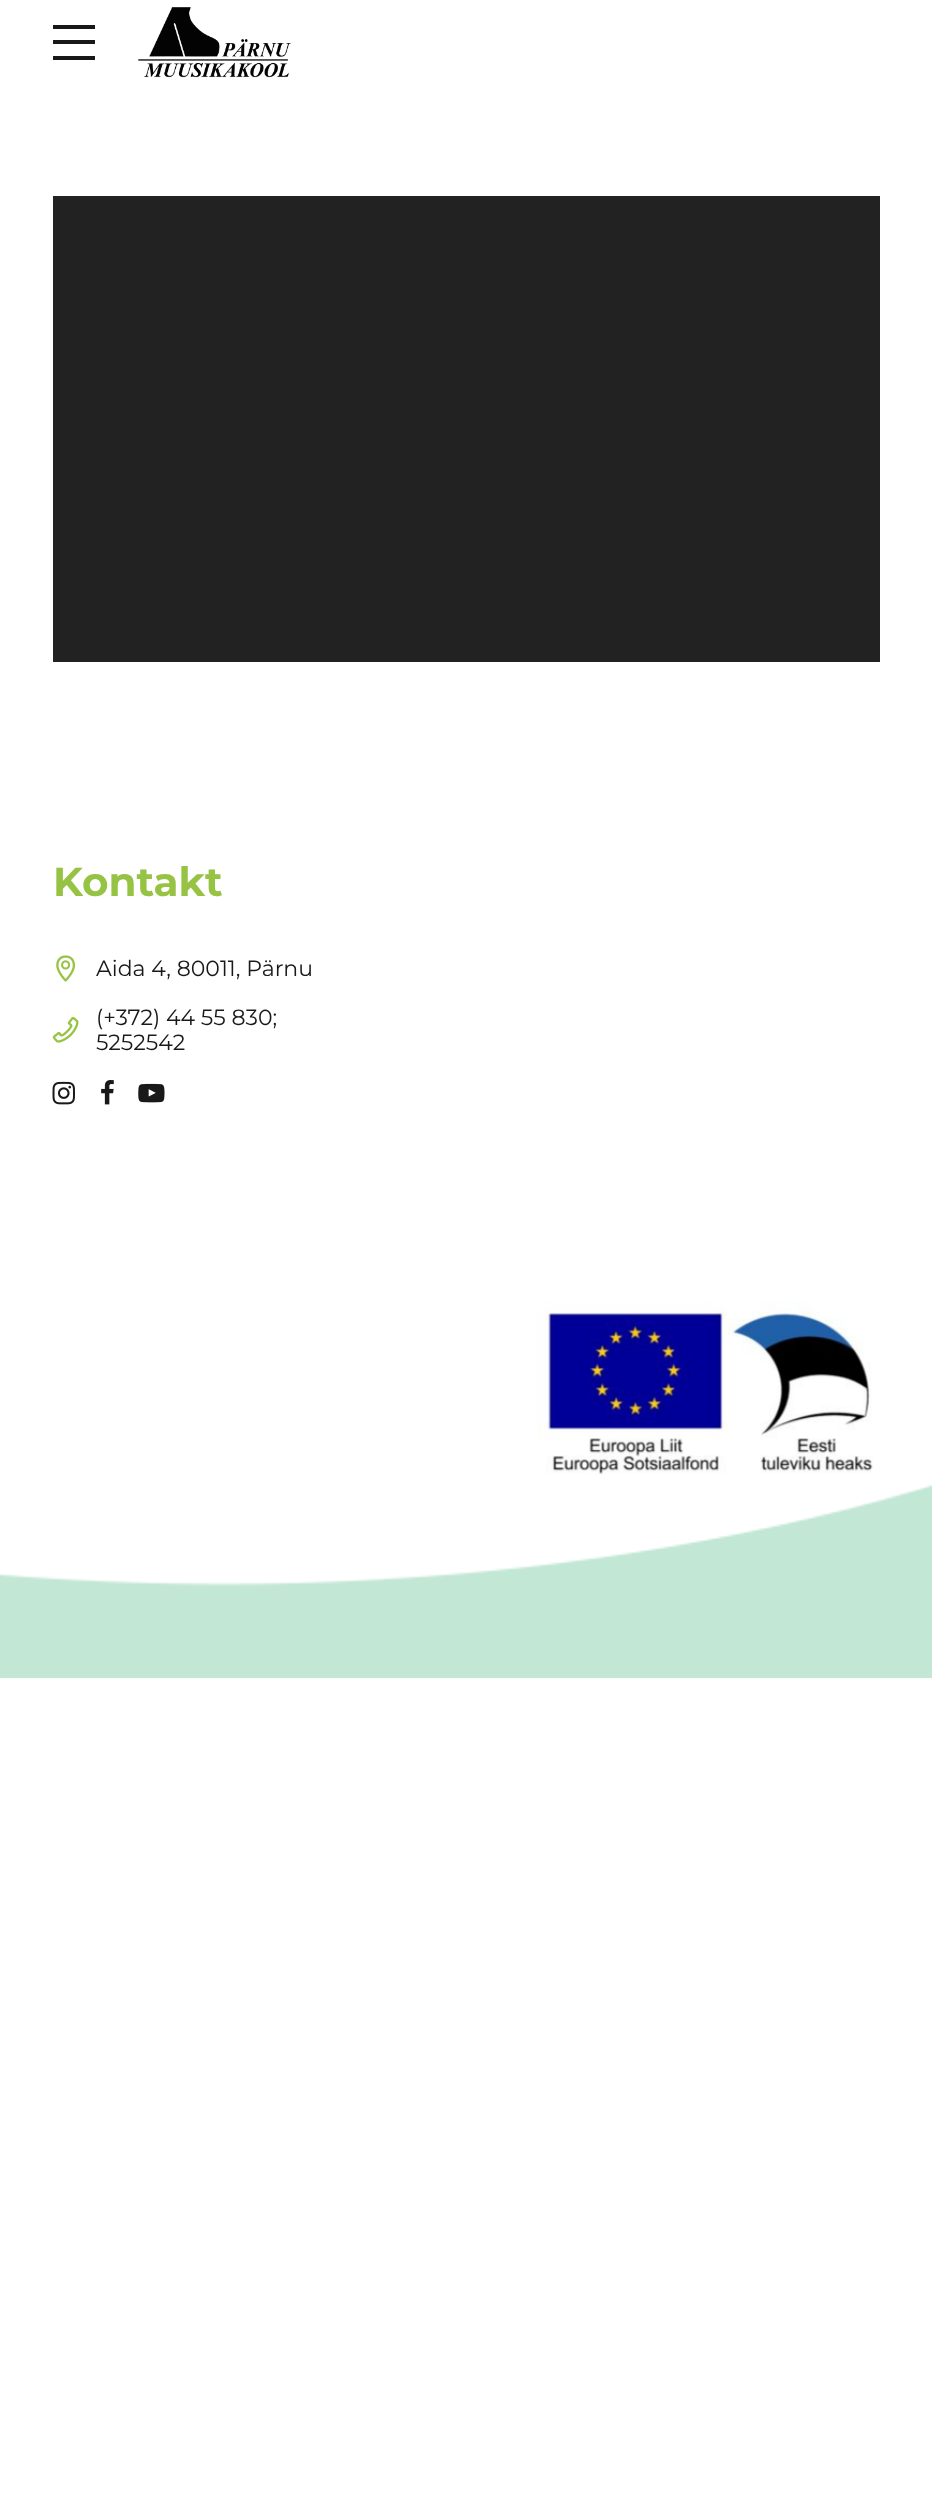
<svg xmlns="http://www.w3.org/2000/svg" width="932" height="2507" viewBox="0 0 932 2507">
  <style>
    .t1 { font: bold 40.5px Montserrat; fill: #97c344; }
    .t2 { font: 22px Montserrat; fill: #191919; }
  </style>
  <rect width="100%" height="100%" fill="#fff"/>
  <rect x="53" y="25" width="42" height="4" fill="#181818"/>
  <rect x="53" y="40" width="42" height="4" fill="#181818"/>
  <rect x="53" y="56" width="42" height="4" fill="#181818"/>
  <image x="138" y="7" width="153" height="71" href="images/1.png"/>
  <rect x="53" y="196" width="827" height="466" fill="#222"/>
  <image x="0" y="1485" width="932" height="194" href="images/2.png"/>
  <text x="53" y="896" class="t1">Kontakt</text>
  <image x="56" y="955" width="19" height="27" href="images/3.png"/>
  <text x="96" y="976" class="t2">Aida 4, 80011, Pärnu</text>
  <image x="52" y="1016" width="27" height="27" href="images/4.png"/>
  <text x="96" y="1025" class="t2">(+372) 44 55 830;</text>
  <text x="96" y="1050" class="t2">5252542</text>
  <image x="52" y="1081" width="23" height="24" href="images/5.png"/>
  <image x="101" y="1080" width="13" height="25" href="images/6.png"/>
  <image x="138" y="1083" width="27" height="20" href="images/7.png"/>
  <image x="537" y="1302" width="336" height="173" href="images/8.png"/>
</svg>
